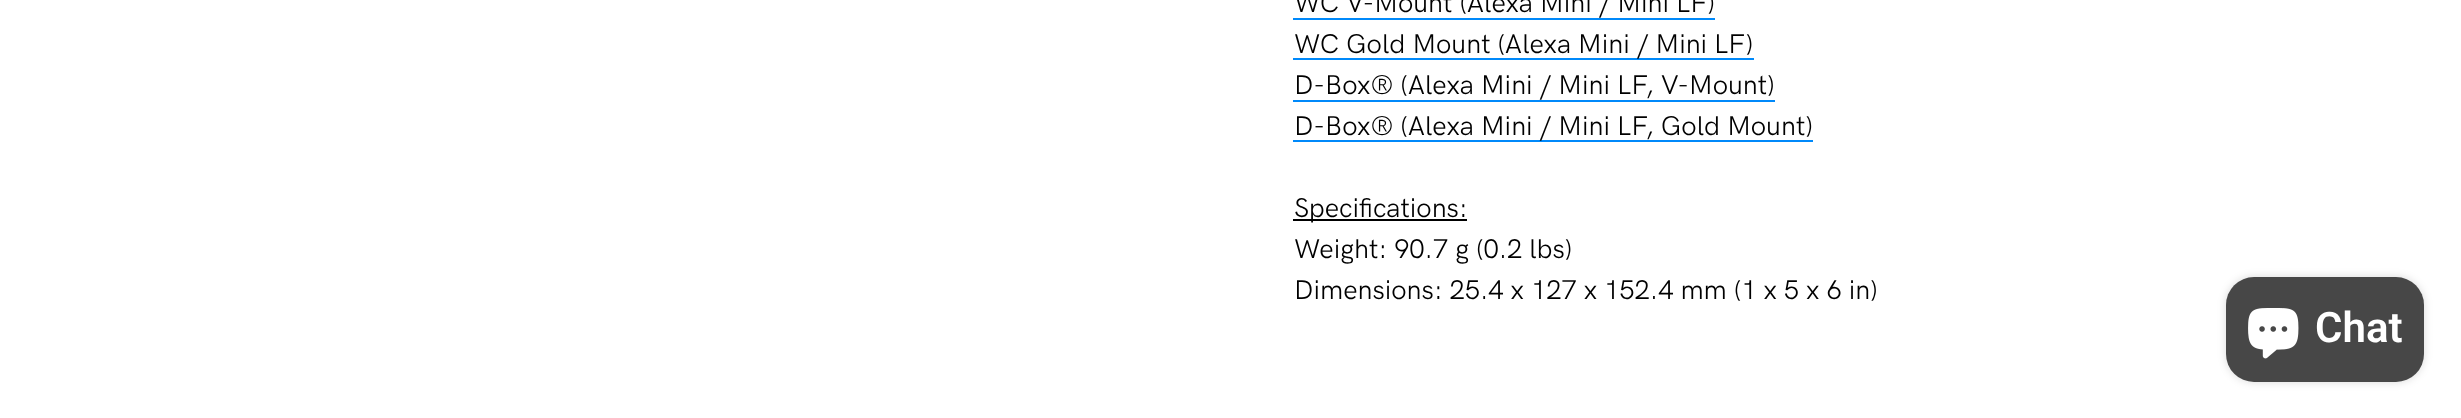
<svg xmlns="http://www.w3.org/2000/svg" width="2461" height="418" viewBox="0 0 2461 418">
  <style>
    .t1 { font: 27.25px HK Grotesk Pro; fill: #000; }
    .t2 { font: 600 42px Roboto; fill: #fff; }
  </style>
  <rect width="100%" height="100%" fill="#fff"/>
  <text x="1294" y="12" class="t1">WC V-Mount (Alexa Mini / Mini LF)</text>
  <rect x="1293" y="18" width="422" height="2" fill="#0089fa"/>
  <rect x="1293" y="58" width="461" height="2" fill="#0089fa"/>
  <text x="1294" y="53" class="t1">WC Gold Mount (Alexa Mini / Mini LF)</text>
  <text x="1294" y="94" class="t1">D-Box® (Alexa Mini / Mini LF, V-Mount)</text>
  <rect x="1293" y="100" width="482" height="2" fill="#0089fa"/>
  <rect x="1293" y="140" width="520" height="2" fill="#0089fa"/>
  <text x="1294" y="135" class="t1">D-Box® (Alexa Mini / Mini LF, Gold Mount)</text>
  <rect x="1293" y="219" width="174" height="2" fill="#000"/>
  <text x="1294" y="217" class="t1">Specifications:</text>
  <text x="1294" y="258" class="t1">Weight: 90.7 g (0.2 lbs)</text>
  <text x="1294" y="299" class="t1">Dimensions: 25.4 x 127 x 152.4 mm (1 x 5 x 6 in)</text>
  <rect x="2226" y="277" width="198" height="105" rx="28" fill="#00000026" filter="blur(4.5px)"/>
  <rect x="2226" y="277" width="198" height="105" rx="28" fill="#474747"/>
  <image x="2248" y="308" width="51" height="51" href="images/1.png"/>
  <text x="2315" y="342" class="t2">Chat</text>
</svg>
